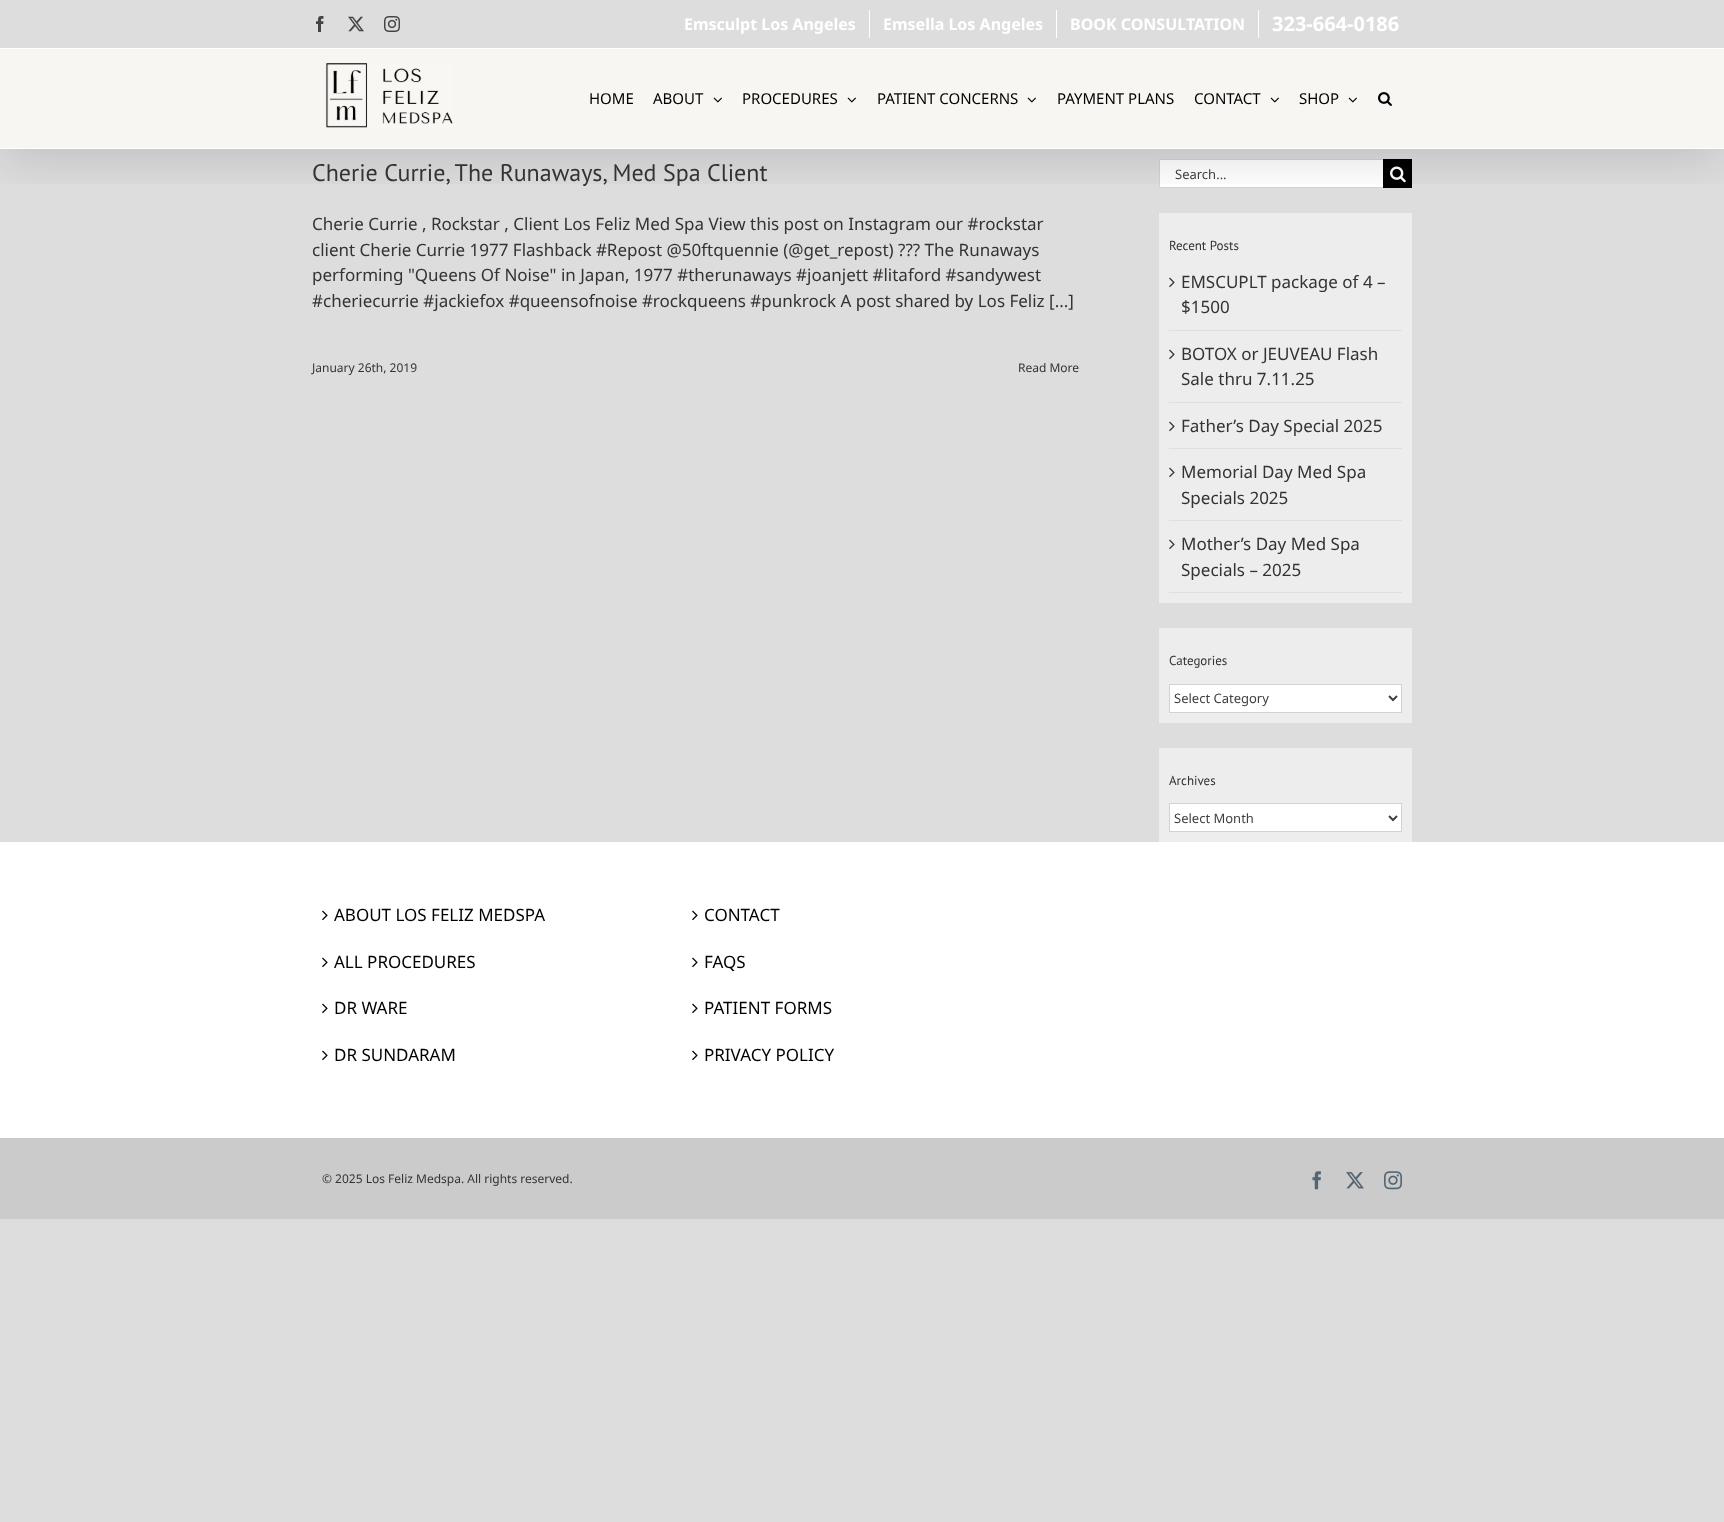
<svg xmlns="http://www.w3.org/2000/svg" width="1724" height="1522" viewBox="0 0 1724 1522">
  <style>
    .t1 { font: bold 16px Noto Sans; fill: #fff; }
    .t2 { font: bold 20px Noto Sans; fill: #fff; }
    .t3 { font: 15px Noto Sans; fill: #000; }
    .t4 { font: 24px PT Sans; fill: #333; }
    .t5 { font: 17px Noto Sans; fill: #333; }
    .t6 { font: 12px Noto Sans; fill: #333; }
    .t7 { font: 13px Noto Sans; fill: #404040; }
    .t8 { font: 13px PT Sans; fill: #333; }
    .t9 { font: 17px Noto Sans; fill: #000; }
  </style>
  <defs>
    <clipPath id="clip1"><rect x="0" y="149" width="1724" height="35"/></clipPath>
  </defs>
  <rect width="100%" height="100%" fill="#ddd"/>
  <rect x="1160" y="160" width="223" height="27" fill="#fff"/>
  <rect x="1159" y="159" width="224" height="1" fill="#d2d2d2"/>
  <rect x="1159" y="187" width="224" height="1" fill="#d2d2d2"/>
  <rect x="1159" y="159" width="1" height="29" fill="#d2d2d2"/>
  <rect x="1383" y="159" width="29" height="29" fill="#000"/>
  <image x="1390" y="166" width="16" height="17" href="images/7.png"/>
  <rect x="1159" y="213" width="253" height="390" fill="#ededed"/>
  <g clip-path="url(#clip1)">
    <rect x="2" y="12" width="1720" height="145" fill="#00000024" filter="blur(25px)"/>
  </g>
  <rect x="0" y="48" width="1724" height="1" fill="#fff"/>
  <image x="316" y="16" width="8" height="16" href="images/1.png"/>
  <image x="348" y="16" width="16" height="16" href="images/2.png"/>
  <image x="384" y="16" width="16" height="16" href="images/3.png"/>
  <text x="684" y="30" class="t1">Emsculpt Los Angeles</text>
  <rect x="869" y="10" width="1" height="28" fill="#fff"/>
  <text x="883" y="30" class="t1">Emsella Los Angeles</text>
  <rect x="1056" y="10" width="1" height="28" fill="#fff"/>
  <text x="1070" y="30" class="t1">BOOK CONSULTATION</text>
  <rect x="1258" y="10" width="1" height="28" fill="#fff"/>
  <text x="1272" y="31" class="t2">323-664-0186</text>
  <rect x="0" y="49" width="1724" height="99" fill="#f7f6f2"/>
  <rect x="0" y="148" width="1724" height="1" fill="#fff"/>
  <image x="325" y="63" width="128" height="65" href="images/4.png"/>
  <text x="589" y="104" class="t3">HOME</text>
  <text x="653" y="104" class="t3">ABOUT</text>
  <image x="713" y="97" width="9" height="6" href="images/5.png"/>
  <text x="742" y="104" class="t3">PROCEDURES</text>
  <image x="847" y="97" width="9" height="6" href="images/5.png"/>
  <text x="877" y="104" class="t3">PATIENT CONCERNS</text>
  <image x="1027" y="97" width="9" height="6" href="images/5.png"/>
  <text x="1057" y="104" class="t3">PAYMENT PLANS</text>
  <text x="1194" y="104" class="t3">CONTACT</text>
  <image x="1270" y="97" width="9" height="6" href="images/5.png"/>
  <text x="1299" y="104" class="t3">SHOP</text>
  <image x="1348" y="97" width="9" height="6" href="images/5.png"/>
  <image x="1378" y="92" width="14" height="14" href="images/6.png"/>
  <text x="312" y="181" class="t4">Cherie Currie, The Runaways, Med Spa Client</text>
  <text x="312" y="230" class="t5">Cherie Currie , Rockstar , Client Los Feliz Med Spa View this post on Instagram our #rockstar</text>
  <text x="312" y="256" class="t5">client Cherie Currie 1977 Flashback #Repost @50ftquennie (@get_repost) ??? The Runaways</text>
  <text x="312" y="281" class="t5">performing "Queens Of Noise" in Japan, 1977 #therunaways #joanjett #litaford #sandywest</text>
  <text x="312" y="307" class="t5">#cheriecurrie #jackiefox #queensofnoise #rockqueens #punkrock A post shared by Los Feliz [...]</text>
  <rect x="312" y="353" width="767" height="1" fill="#e0dede"/>
  <rect x="312" y="382" width="767" height="1" fill="#e0dede"/>
  <text x="312" y="372" class="t6">January 26th, 2019</text>
  <text x="1018" y="372" class="t6">Read More</text>
  <text x="1175" y="179" class="t7">Search...</text>
  <text x="1169" y="250" class="t8">Recent Posts</text>
  <rect x="1169" y="330" width="233" height="1" fill="#e0dede"/>
  <image x="1169" y="277" width="6" height="11" href="images/8.png"/>
  <text x="1181" y="288" class="t5">EMSCUPLT package of 4 –</text>
  <text x="1181" y="313" class="t5">$1500</text>
  <rect x="1169" y="402" width="233" height="1" fill="#e0dede"/>
  <image x="1169" y="349" width="6" height="11" href="images/8.png"/>
  <text x="1181" y="360" class="t5">BOTOX or JEUVEAU Flash</text>
  <text x="1181" y="385" class="t5">Sale thru 7.11.25</text>
  <rect x="1169" y="448" width="233" height="1" fill="#e0dede"/>
  <image x="1169" y="421" width="6" height="11" href="images/8.png"/>
  <text x="1181" y="432" class="t5">Father’s Day Special 2025</text>
  <rect x="1169" y="520" width="233" height="1" fill="#e0dede"/>
  <image x="1169" y="467" width="6" height="11" href="images/8.png"/>
  <text x="1181" y="478" class="t5">Memorial Day Med Spa</text>
  <text x="1181" y="504" class="t5">Specials 2025</text>
  <rect x="1169" y="592" width="233" height="1" fill="#e0dede"/>
  <image x="1169" y="539" width="6" height="11" href="images/8.png"/>
  <text x="1181" y="550" class="t5">Mother’s Day Med Spa</text>
  <text x="1181" y="576" class="t5">Specials – 2025</text>
  <rect x="1159" y="628" width="253" height="95" fill="#ededed"/>
  <text x="1169" y="665" class="t8">Categories</text>
  <rect x="1169.5" y="684.5" width="232" height="28" fill="#fff" stroke="#d2d2d2"/>
  <path d="M1389 696L1393 700L1397 696" fill="none" stroke="#404040" stroke-width="2"/>
  <text x="1174" y="703" class="t7">Select Category</text>
  <rect x="1159" y="748" width="253" height="94" fill="#ededed"/>
  <text x="1169" y="785" class="t8">Archives</text>
  <rect x="1169.5" y="803.5" width="232" height="28" fill="#fff" stroke="#d2d2d2"/>
  <path d="M1389 816L1393 820L1397 816" fill="none" stroke="#404040" stroke-width="2"/>
  <text x="1174" y="823" class="t7">Select Month</text>
  <rect x="0" y="842" width="1724" height="296" fill="#fff"/>
  <image x="322" y="910" width="6" height="11" href="images/9.png"/>
  <text x="334" y="921" class="t9">ABOUT LOS FELIZ MEDSPA</text>
  <image x="322" y="957" width="6" height="11" href="images/9.png"/>
  <text x="334" y="968" class="t9">ALL PROCEDURES</text>
  <image x="322" y="1003" width="6" height="11" href="images/9.png"/>
  <text x="334" y="1014" class="t9">DR WARE</text>
  <image x="322" y="1050" width="6" height="11" href="images/9.png"/>
  <text x="334" y="1061" class="t9">DR SUNDARAM</text>
  <image x="692" y="910" width="6" height="11" href="images/9.png"/>
  <text x="704" y="921" class="t9">CONTACT</text>
  <image x="692" y="957" width="6" height="11" href="images/9.png"/>
  <text x="704" y="968" class="t9">FAQS</text>
  <image x="692" y="1003" width="6" height="11" href="images/9.png"/>
  <text x="704" y="1014" class="t9">PATIENT FORMS</text>
  <image x="692" y="1050" width="6" height="11" href="images/9.png"/>
  <text x="704" y="1061" class="t9">PRIVACY POLICY</text>
  <rect x="0" y="1138" width="1724" height="81" fill="#cbcbcb"/>
  <text x="322" y="1183" class="t6">© 2025 Los Feliz Medspa. All rights reserved.</text>
  <image x="1312" y="1171" width="9" height="19" href="images/10.png"/>
  <image x="1346" y="1172" width="18" height="17" href="images/11.png"/>
  <image x="1384" y="1171" width="18" height="19" href="images/12.png"/>
</svg>
